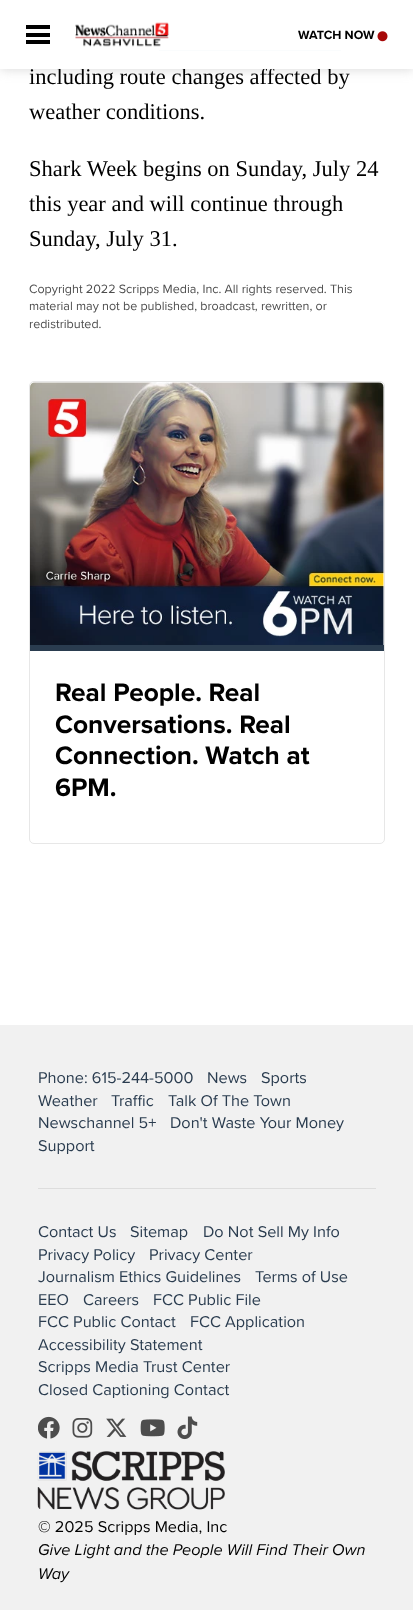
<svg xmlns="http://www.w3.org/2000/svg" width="413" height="1610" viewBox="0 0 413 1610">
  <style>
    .t1 { font: 22.5px Liberation Serif; fill: #000; }
    .t2 { font: bold 12.5px Proxima Nova; fill: #000; }
    .t3 { font: 12.5px Proxima Nova; fill: #4e4e4e; }
    .t4 { font: bold 26.25px Proxima Nova; fill: #000; }
    .t5 { font: 16.25px Proxima Nova; fill: #2a3c4f; }
    .t6 { font: 16.25px Proxima Nova; fill: #000; }
    .t7 { font: italic 16.25px Proxima Nova; fill: #000; }
  </style>
  <defs>
    <clipPath id="clip1"><path d="M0 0H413V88H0ZM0 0H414V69H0Z" clip-rule="evenodd"/></clipPath>
  </defs>
  <rect width="100%" height="100%" fill="#fff"/>
  <rect x="159" y="50" width="182" height="1" fill="#2972a3"/>
  <g clip-path="url(#clip1)">
    <rect x="0" y="0" width="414" height="69" fill="#cccccccc" filter="blur(6px)"/>
  </g>
  <text x="29" y="84" class="t1">including route changes affected by</text>
  <rect x="0" y="50" width="413" height="19" fill="#fffffffa"/>
  <rect x="26" y="25" width="24" height="4" fill="#000"/>
  <rect x="26" y="33" width="24" height="4" fill="#000"/>
  <rect x="26" y="40" width="24" height="4" fill="#000"/>
  <image x="75" y="22" width="94" height="25" href="images/1.png"/>
  <text x="298" y="39" class="t2">WATCH NOW</text>
  <image x="377" y="31" width="11" height="11" href="images/2.png"/>
  <text x="29" y="119" class="t1">weather conditions.</text>
  <text x="29" y="176" class="t1">Shark Week begins on Sunday, July 24</text>
  <text x="29" y="211" class="t1">this year and will continue through</text>
  <text x="29" y="246" class="t1">Sunday, July 31.</text>
  <text x="29" y="293" class="t3">Copyright 2022 Scripps Media, Inc. All rights reserved. This</text>
  <text x="29" y="310" class="t3">material may not be published, broadcast, rewritten, or</text>
  <text x="29" y="328" class="t3">redistributed.</text>
  <rect x="29.5" y="381.5" width="355" height="462" rx="4.5" fill="none" stroke="#e7e7e7"/>
  <image x="30" y="382" width="354" height="263" href="images/3.png"/>
  <rect x="30" y="645" width="354" height="6" fill="#2a3c4f"/>
  <text x="55" y="701" class="t4">Real People. Real</text>
  <text x="55" y="733" class="t4">Conversations. Real</text>
  <text x="55" y="764" class="t4">Connection. Watch at</text>
  <text x="55" y="796" class="t4">6PM.</text>
  <rect x="0" y="1025" width="413" height="585" fill="#f1f1f1"/>
  <text x="38" y="1083" class="t5">Phone: 615-244-5000</text>
  <text x="207" y="1083" class="t5">News</text>
  <text x="261" y="1083" class="t5">Sports</text>
  <text x="38" y="1106" class="t5">Weather</text>
  <text x="111" y="1106" class="t5">Traffic</text>
  <text x="168" y="1106" class="t5">Talk Of The Town</text>
  <text x="38" y="1128" class="t5">Newschannel 5+</text>
  <text x="170" y="1128" class="t5">Don't Waste Your Money</text>
  <text x="38" y="1151" class="t5">Support</text>
  <rect x="38" y="1188" width="338" height="1" fill="#ddd"/>
  <text x="38" y="1237" class="t5">Contact Us</text>
  <text x="130" y="1237" class="t5">Sitemap</text>
  <text x="203" y="1237" class="t5">Do Not Sell My Info</text>
  <text x="38" y="1260" class="t5">Privacy Policy</text>
  <text x="149" y="1260" class="t5">Privacy Center</text>
  <text x="38" y="1282" class="t5">Journalism Ethics Guidelines</text>
  <text x="255" y="1282" class="t5">Terms of Use</text>
  <text x="38" y="1305" class="t5">EEO</text>
  <text x="83" y="1305" class="t5">Careers</text>
  <text x="153" y="1305" class="t5">FCC Public File</text>
  <text x="38" y="1327" class="t5">FCC Public Contact</text>
  <text x="190" y="1327" class="t5">FCC Application</text>
  <text x="38" y="1350" class="t5">Accessibility Statement</text>
  <text x="38" y="1372" class="t5">Scripps Media Trust Center</text>
  <text x="38" y="1395" class="t5">Closed Captioning Contact</text>
  <image x="38" y="1416" width="22" height="23" href="images/4.png"/>
  <image x="72" y="1418" width="21" height="20" href="images/5.png"/>
  <image x="106" y="1418" width="21" height="19" href="images/6.png"/>
  <image x="140" y="1419" width="25" height="18" href="images/7.png"/>
  <image x="177" y="1416" width="21" height="24" href="images/8.png"/>
  <image x="37" y="1451" width="188" height="59" href="images/9.png"/>
  <text x="38" y="1532" class="t6">© 2025 Scripps Media, Inc</text>
  <text x="38" y="1555" class="t7">Give Light and the People Will Find Their Own</text>
  <text x="38" y="1579" class="t7">Way</text>
</svg>
